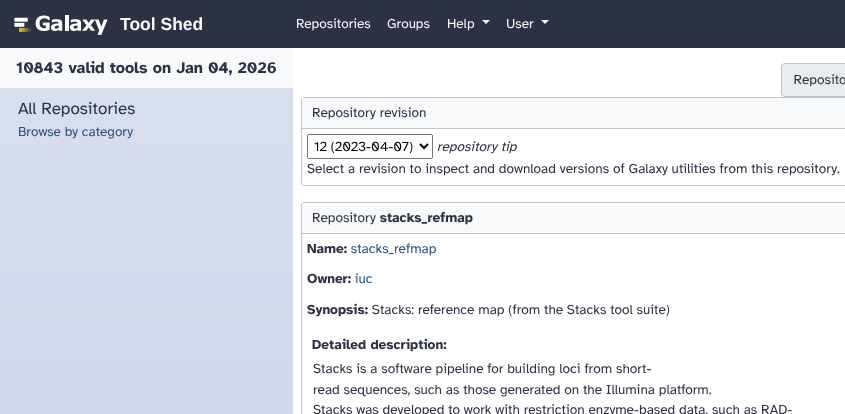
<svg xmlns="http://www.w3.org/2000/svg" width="845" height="414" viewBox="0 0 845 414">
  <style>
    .t1 { font: bold 17.5px Liberation Sans; fill: #f8f9fa; }
    .t2 { font: 13.5px Atkinson Hyperlegible; fill: #f8f9fa; }
    .t3 { font: bold 16px Atkinson Hyperlegible; fill: #2c3143; }
    .t4 { font: 17px Atkinson Hyperlegible; fill: #2c3143; }
    .t5 { font: 13.5px Atkinson Hyperlegible; fill: #25537b; }
  </style>
  <rect width="100%" height="100%" fill="#fff"/>
  <rect x="0" y="0" width="845" height="48" fill="#2c3143"/>
  <image x="14" y="15" width="94" height="20" href="images/1.png"/>
  <text x="120" y="30" class="t1">Tool Shed</text>
  <text x="296" y="28" class="t2">Repositories</text>
  <text x="387" y="28" class="t2">Groups</text>
  <text x="447" y="28" class="t2">Help</text>
  <path d="M482 20H490L486 24Z" fill="#f8f9fa"/>
  <text x="506" y="28" class="t2">User</text>
  <path d="M541 20H549L545 24Z" fill="#f8f9fa"/>
  <image x="0" y="88" width="293" height="326" href="images/2.png"/>
  <rect x="0" y="48" width="293" height="40" fill="#f8f9fa"/>
  <text x="16" y="73" class="t3">10843 valid tools on Jan 04, 2026</text>
  <text x="18" y="114" class="t4">All Repositories</text>
  <text x="18" y="136" class="t5">Browse by category</text>
  <image x="301" y="63" width="544" height="351" href="images/3.png"/>
</svg>
